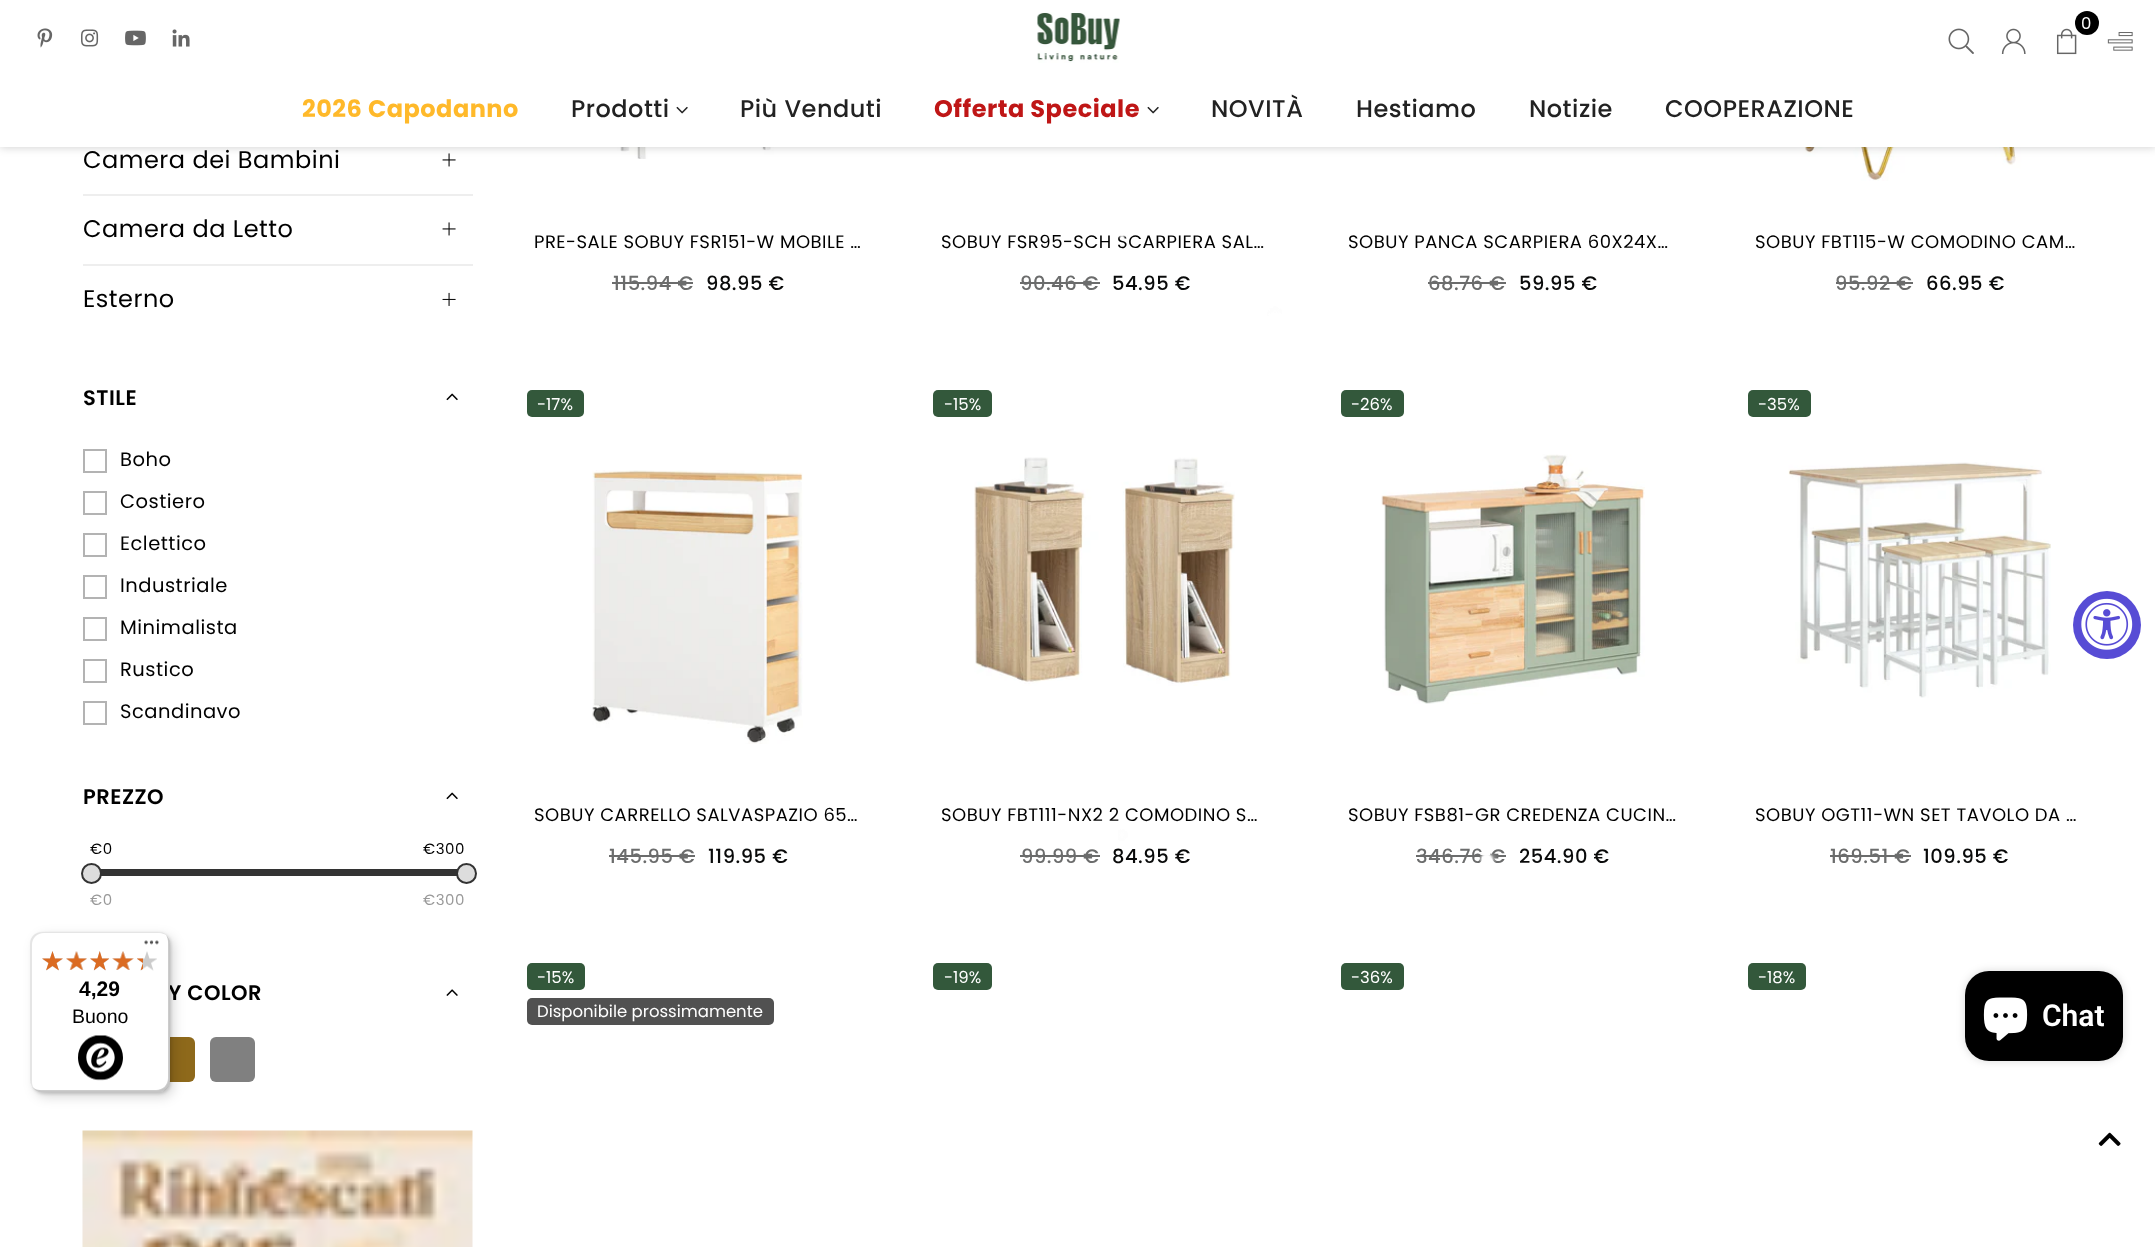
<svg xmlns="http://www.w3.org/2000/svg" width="2155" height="1247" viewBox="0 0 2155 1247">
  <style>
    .t1 { font: 16.5px Poppins; letter-spacing: 0.5px; fill: #fff; }
    .t2 { font: bold 24px Poppins; letter-spacing: 0.5px; fill: #ffb92a; }
    .t3 { font: 500 24px Poppins; letter-spacing: 0.5px; fill: #222; }
    .t4 { font: bold 24px Poppins; letter-spacing: 0.5px; fill: #bf1616; }
    .t5 { font: 24px Poppins; letter-spacing: 0.5px; fill: #000; }
    .t6 { font: 600 21px Poppins; letter-spacing: 0.5px; fill: #000; }
    .t7 { font: 19.5px Poppins; letter-spacing: 0.5px; fill: #000; }
    .t8 { font: 15px Poppins; letter-spacing: 0.5px; fill: #000; }
    .t9 { font: 15px Poppins; letter-spacing: 0.5px; fill: #999; }
    .t10 { font: 18px Poppins; letter-spacing: 0.5px; fill: #000; }
    .t11 { font: 500 19.5px Poppins; letter-spacing: 0.5px; fill: #6b6c6c; }
    .t12 { font: 500 19.5px Poppins; letter-spacing: 0.5px; fill: #090a0a; }
    .t13 { font: 16.5px Poppins; fill: #fff; }
    .t14 { font: bold 21px Liberation Sans; fill: #000; }
    .t15 { font: 19.5px Liberation Sans; fill: #000; }
    .t16 { font: 600 30px Roboto; fill: #fff; }
  </style>
  <rect width="100%" height="100%" fill="#fff"/>
  <image x="442" y="153" width="14" height="14" href="images/11.png"/>
  <image x="613" y="147" width="165" height="12" href="images/16.png"/>
  <image x="1791" y="147" width="258" height="34" href="images/17.png"/>
  <rect x="0" y="0" width="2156" height="147" fill="#00000033" filter="blur(5px)"/>
  <rect x="0" y="0" width="2155" height="147" fill="#fff"/>
  <image x="1037" y="12" width="83" height="51" href="images/1.png"/>
  <image x="2056" y="28" width="21" height="27" href="images/2.png"/>
  <circle cx="2087" cy="23" r="12" fill="#000"/>
  <text x="2081" y="29" class="t1">0</text>
  <image x="1948" y="28" width="26" height="26" href="images/3.png"/>
  <image x="2001" y="28" width="25" height="26" href="images/4.png"/>
  <image x="2107" y="32" width="26" height="19" href="images/5.png"/>
  <image x="37" y="28" width="16" height="20" href="images/6.png"/>
  <image x="81" y="29" width="18" height="18" href="images/7.png"/>
  <image x="125" y="30" width="21" height="16" href="images/8.png"/>
  <image x="172" y="29" width="18" height="18" href="images/9.png"/>
  <text x="302" y="117" class="t2">2026 Capodanno</text>
  <text x="571" y="117" class="t3">Prodotti</text>
  <image x="676" y="106" width="12" height="8" href="images/10.png"/>
  <text x="740" y="117" class="t3">Più Venduti</text>
  <text x="934" y="117" class="t4">Offerta Speciale</text>
  <image x="1147" y="106" width="12" height="8" href="images/10.png"/>
  <text x="1211" y="117" class="t3">NOVITÀ</text>
  <text x="1356" y="117" class="t3">Hestiamo</text>
  <text x="1529" y="117" class="t3">Notizie</text>
  <text x="1665" y="117" class="t3">COOPERAZIONE</text>
  <text x="83" y="168" class="t5">Camera dei Bambini</text>
  <rect x="83" y="194" width="390" height="2" fill="#eee"/>
  <text x="83" y="237" class="t5">Camera da Letto</text>
  <image x="442" y="222" width="14" height="14" href="images/11.png"/>
  <rect x="83" y="264" width="390" height="2" fill="#eee"/>
  <text x="83" y="307" class="t5">Esterno</text>
  <image x="442" y="292" width="14" height="14" href="images/12.png"/>
  <text x="83" y="405" class="t6">STILE</text>
  <image x="446" y="393" width="12" height="8" href="images/13.png"/>
  <rect x="84" y="450" width="22" height="22" fill="none" stroke="#b3b3b3" stroke-width="2"/>
  <text x="120" y="466" class="t7">Boho</text>
  <rect x="84" y="492" width="22" height="22" fill="none" stroke="#b3b3b3" stroke-width="2"/>
  <text x="120" y="508" class="t7">Costiero</text>
  <rect x="84" y="534" width="22" height="22" fill="none" stroke="#b3b3b3" stroke-width="2"/>
  <text x="120" y="550" class="t7">Eclettico</text>
  <rect x="84" y="576" width="22" height="22" fill="none" stroke="#b3b3b3" stroke-width="2"/>
  <text x="120" y="592" class="t7">Industriale</text>
  <rect x="84" y="618" width="22" height="22" fill="none" stroke="#b3b3b3" stroke-width="2"/>
  <text x="120" y="634" class="t7">Minimalista</text>
  <rect x="84" y="660" width="22" height="22" fill="none" stroke="#b3b3b3" stroke-width="2"/>
  <text x="120" y="676" class="t7">Rustico</text>
  <rect x="84" y="702" width="22" height="22" fill="none" stroke="#b3b3b3" stroke-width="2"/>
  <text x="120" y="718" class="t7">Scandinavo</text>
  <text x="83" y="804" class="t6">PREZZO</text>
  <image x="446" y="792" width="12" height="8" href="images/13.png"/>
  <text x="90" y="854" class="t8">€0</text>
  <text x="423" y="854" class="t8">€300</text>
  <rect x="101" y="869" width="364" height="7" fill="#333"/>
  <circle cx="91.5" cy="873.5" r="9.5" fill="#ddd" stroke="#333" stroke-width="2"/>
  <circle cx="466.5" cy="873.5" r="9.5" fill="#ddd" stroke="#333" stroke-width="2"/>
  <text x="90" y="905" class="t9">€0</text>
  <text x="423" y="905" class="t9">€300</text>
  <text x="168" y="1000" class="t6">Y COLOR</text>
  <image x="446" y="989" width="12" height="7" href="images/14.png"/>
  <rect x="150" y="1037" width="45" height="45" rx="6" fill="#8e691b"/>
  <rect x="210" y="1037" width="45" height="45" rx="6" fill="#808080"/>
  <image x="82" y="1130" width="391" height="117" href="images/15.png"/>
  <text x="534" y="248" class="t10">PRE-SALE SOBUY FSR151-W MOBILE …</text>
  <text x="613" y="290" class="t11">115.94 €</text>
  <rect x="612" y="282" width="81" height="2" fill="#6b6c6c"/>
  <text x="706" y="290" class="t12">98.95 €</text>
  <text x="941" y="248" class="t10">SOBUY FSR95-SCH SCARPIERA SAL…</text>
  <text x="1020" y="290" class="t11">90.46 €</text>
  <rect x="1020" y="282" width="80" height="2" fill="#6b6c6c"/>
  <text x="1112" y="290" class="t12">54.95 €</text>
  <text x="1348" y="248" class="t10">SOBUY PANCA SCARPIERA 60X24X…</text>
  <text x="1428" y="290" class="t11">68.76 €</text>
  <rect x="1428" y="282" width="78" height="2" fill="#6b6c6c"/>
  <text x="1519" y="290" class="t12">59.95 €</text>
  <text x="1755" y="248" class="t10">SOBUY FBT115-W COMODINO CAM…</text>
  <text x="1835" y="290" class="t11">95.92 €</text>
  <rect x="1836" y="282" width="77" height="2" fill="#6b6c6c"/>
  <text x="1926" y="290" class="t12">66.95 €</text>
  <rect x="527" y="390" width="57" height="27" rx="5" fill="#33583b"/>
  <text x="537" y="410" class="t13">-17%</text>
  <image x="592" y="470" width="211" height="274" href="images/18.png"/>
  <text x="534" y="821" class="t10">SOBUY CARRELLO SALVASPAZIO 65…</text>
  <text x="609" y="863" class="t11">145.95 €</text>
  <rect x="609" y="855" width="86" height="2" fill="#6b6c6c"/>
  <text x="708" y="863" class="t12">119.95 €</text>
  <rect x="933" y="390" width="59" height="27" rx="5" fill="#33583b"/>
  <text x="944" y="410" class="t13">-15%</text>
  <text x="941" y="821" class="t10">SOBUY FBT111-NX2 2 COMODINO S…</text>
  <text x="1112" y="863" class="t12">84.95 €</text>
  <text x="1348" y="821" class="t10">SOBUY FSB81-GR CREDENZA CUCIN…</text>
  <text x="1416" y="863" class="t11">346.76 €</text>
  <rect x="1416" y="855" width="90" height="2" fill="#6b6c6c"/>
  <image x="1118" y="235" width="379" height="628" href="images/22.png"/>
  <image x="974" y="457" width="261" height="229" href="images/19.png"/>
  <text x="1021" y="863" class="t11">99.99 €</text>
  <rect x="1020" y="855" width="80" height="2" fill="#6b6c6c"/>
  <rect x="1341" y="390" width="63" height="27" rx="5" fill="#33583b"/>
  <text x="1351" y="410" class="t13">-26%</text>
  <image x="1381" y="454" width="264" height="250" href="images/20.png"/>
  <text x="1519" y="863" class="t12">254.90 €</text>
  <rect x="1748" y="390" width="63" height="27" rx="5" fill="#33583b"/>
  <text x="1758" y="410" class="t13">-35%</text>
  <image x="1788" y="462" width="263" height="236" href="images/21.png"/>
  <text x="1755" y="821" class="t10">SOBUY OGT11-WN SET TAVOLO DA …</text>
  <text x="1830" y="863" class="t11">169.51 €</text>
  <rect x="1830" y="855" width="81" height="2" fill="#6b6c6c"/>
  <text x="1923" y="863" class="t12">109.95 €</text>
  <rect x="527" y="963" width="58" height="27" rx="5" fill="#33583b"/>
  <text x="537" y="983" class="t13">-15%</text>
  <rect x="527" y="998" width="247" height="27" rx="5" fill="#515151"/>
  <text x="537" y="1017" class="t13">Disponibile prossimamente</text>
  <rect x="933" y="963" width="59" height="27" rx="5" fill="#33583b"/>
  <text x="944" y="983" class="t13">-19%</text>
  <rect x="1341" y="963" width="63" height="27" rx="5" fill="#33583b"/>
  <text x="1351" y="983" class="t13">-36%</text>
  <rect x="1748" y="963" width="58" height="27" rx="5" fill="#33583b"/>
  <text x="1758" y="983" class="t13">-18%</text>
  <circle cx="2107" cy="625" r="34" fill="#574cd5"/>
  <image x="2081" y="598" width="52" height="52" href="images/23.png"/>
  <rect x="35" y="936" width="139" height="161" rx="12" fill="#00000026" filter="blur(6px)"/>
  <rect x="32" y="933" width="139" height="161" rx="12" fill="#00000026" filter="blur(1.5px)"/>
  <rect x="30" y="932" width="140" height="160" rx="12" fill="#fff"/>
  <path d="M44 933H159C162 933 164 934 166 935C164 933 161 932 158 932H42C35 932 30 937 30 944V1080C30 1084 32 1087 35 1090C33 1087 32 1085 32 1082V945C32 938 37 933 44 933Z" fill="#0000001a"/>
  <path d="M32 1087C35 1090 38 1092 42 1092H158C165 1092 170 1087 170 1080V944C170 940 168 937 166 935C167 937 168 939 168 942V1078C168 1085 163 1090 156 1090H40C37 1090 35 1089 32 1087Z" fill="#00000033"/>
  <path d="M34 1089C36 1091 39 1092 42 1092H158C165 1092 170 1087 170 1080V944C170 940 168 937 166 935C168 937 169 940 169 943V1079C169 1086 163 1091 157 1091H41C38 1091 36 1090 34 1089Z" fill="#32323233"/>
  <path d="M33 1088C35 1090 38 1092 42 1092H158C165 1092 170 1087 170 1080V944C170 940 168 937 166 935C168 937 169 940 169 943V1079C169 1086 163 1091 157 1091H41C38 1091 35 1090 33 1088Z" fill="#ffffff4d"/>
  <image x="144" y="940" width="15" height="5" href="images/24.png"/>
  <image x="42" y="951" width="21" height="20" href="images/25.png"/>
  <image x="66" y="951" width="21" height="19" href="images/26.png"/>
  <image x="90" y="951" width="19" height="20" href="images/27.png"/>
  <image x="112" y="951" width="22" height="19" href="images/28.png"/>
  <image x="137" y="951" width="20" height="20" href="images/29.png"/>
  <image x="42" y="951" width="21" height="20" href="images/30.png"/>
  <image x="66" y="951" width="21" height="19" href="images/31.png"/>
  <image x="90" y="951" width="20" height="20" href="images/32.png"/>
  <image x="112" y="951" width="22" height="19" href="images/33.png"/>
  <image x="137" y="958" width="6" height="13" href="images/34.png"/>
  <text x="79" y="996" class="t14">4,29</text>
  <text x="72" y="1023" class="t15">Buono</text>
  <image x="78" y="1035" width="45" height="46" href="images/35.png"/>
  <rect x="1965" y="971" width="158" height="90" rx="24" fill="#00000026" filter="blur(4px)"/>
  <rect x="1965" y="971" width="158" height="90" rx="24" fill="#000"/>
  <image x="1983" y="997" width="45" height="44" href="images/36.png"/>
  <text x="2042" y="1026" class="t16">Chat</text>
  <image x="2098" y="1132" width="23" height="14" href="images/37.png"/>
</svg>
